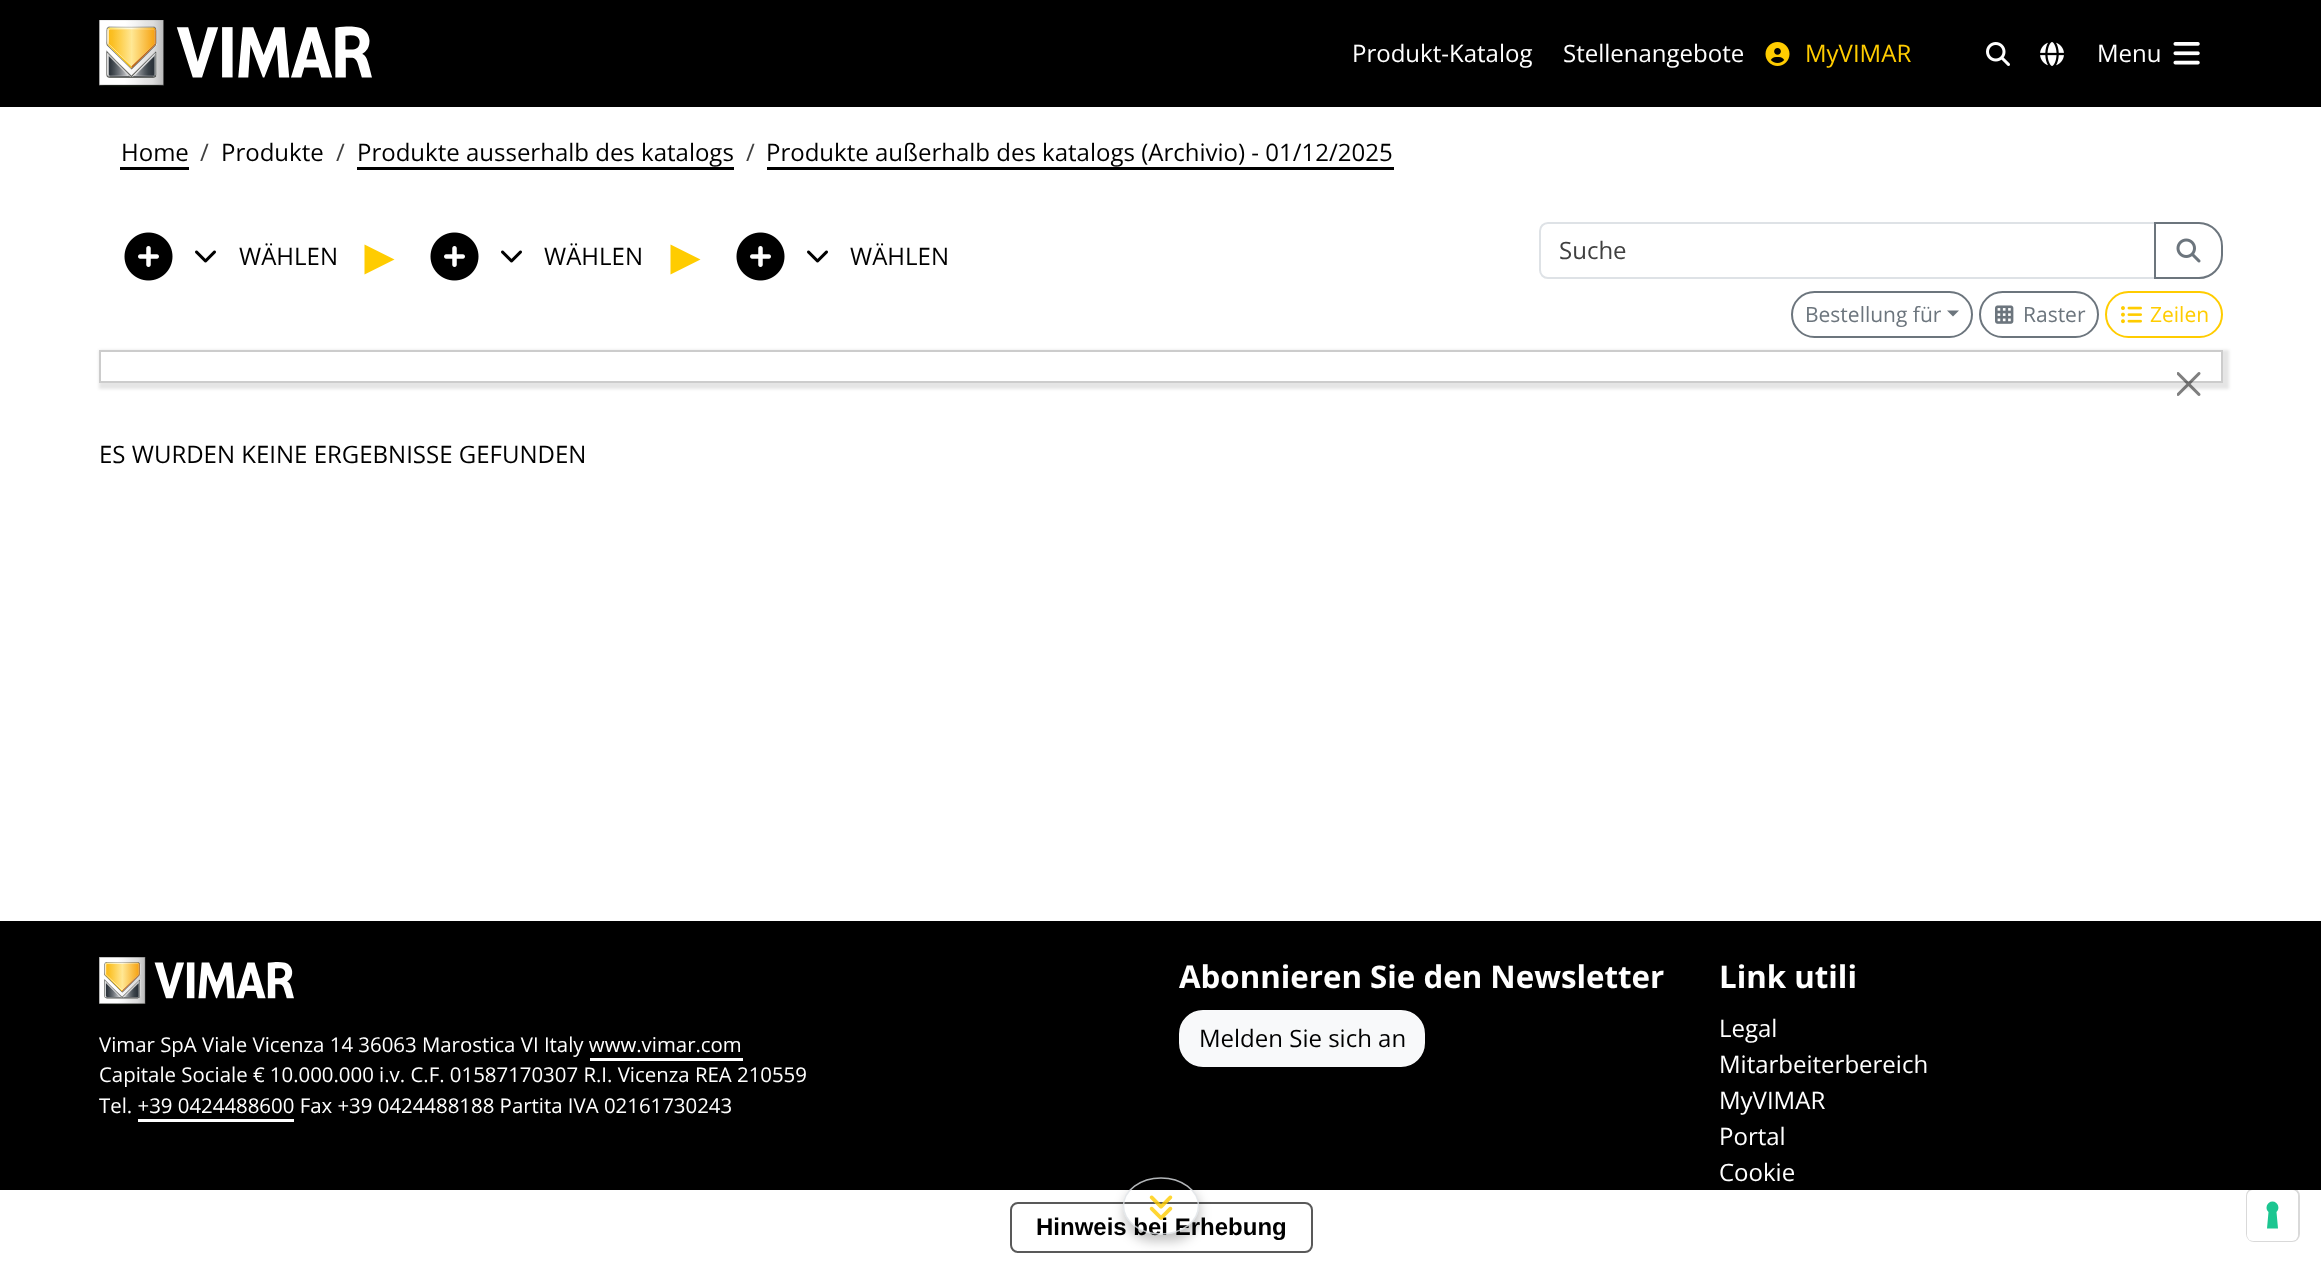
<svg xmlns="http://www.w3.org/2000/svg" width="2321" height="1264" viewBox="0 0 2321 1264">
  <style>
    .t1 { font: 24px Open Sans; fill: #fff; }
    .t2 { font: 24px Open Sans; fill: #fc0; }
    .t3 { font: 24px Open Sans; fill: #000; }
    .t4 { font: 24px Open Sans; fill: #404040; }
    .t5 { font: 21px Open Sans; fill: #6c757d; }
    .t6 { font: 21px Open Sans; fill: #fc0; }
    .t7 { font: 20.4px Open Sans; fill: #fff; }
    .t8 { font: bold 31.25px Open Sans; fill: #fff; }
    .t9 { font: bold 24px Liberation Sans; fill: #000; }
  </style>
  <defs>
    <clipPath id="clip1"><path d="M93 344H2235V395H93ZM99 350H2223V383H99Z" clip-rule="evenodd"/></clipPath>
    <clipPath id="clip2"><path d="M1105 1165H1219V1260H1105ZM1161 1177.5C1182 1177.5 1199 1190.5 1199 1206C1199 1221.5 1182 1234.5 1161 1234.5C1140 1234.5 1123 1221.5 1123 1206C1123 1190.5 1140 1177.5 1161 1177.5Z" clip-rule="evenodd"/></clipPath>
  </defs>
  <rect width="100%" height="100%" fill="#fff"/>
  <rect x="0" y="0" width="2321" height="107" fill="#000"/>
  <image x="99" y="20" width="273" height="67" href="images/1.png"/>
  <text x="1352" y="62" class="t1">Produkt-Katalog</text>
  <text x="1563" y="62" class="t1">Stellenangebote</text>
  <image x="1765" y="42" width="25" height="24" href="images/2.png"/>
  <text x="1805" y="62" class="t2">MyVIMAR</text>
  <image x="1986" y="42" width="24" height="24" href="images/3.png"/>
  <image x="2040" y="42" width="24" height="24" href="images/4.png"/>
  <text x="2097" y="62" class="t1">Menu</text>
  <image x="2173" y="42" width="27" height="23" href="images/5.png"/>
  <text x="121" y="161" class="t3">Home</text>
  <rect x="120" y="167" width="69" height="3" fill="#000"/>
  <text x="200" y="161" class="t4">/</text>
  <text x="221" y="161" class="t3">Produkte</text>
  <text x="336" y="161" class="t4">/</text>
  <text x="357" y="161" class="t3">Produkte ausserhalb des katalogs</text>
  <rect x="357" y="167" width="377" height="3" fill="#000"/>
  <text x="746" y="161" class="t4">/</text>
  <text x="766" y="161" class="t3">Produkte außerhalb des katalogs (Archivio) - 01/12/2025</text>
  <rect x="767" y="167" width="627" height="3" fill="#000"/>
  <image x="124" y="232" width="49" height="49" href="images/6.png"/>
  <image x="195" y="250" width="21" height="13" href="images/7.png"/>
  <text x="239" y="265" class="t3">WÄHLEN</text>
  <path d="M364.5 274.5V244.5L394.5 259.5Z" fill="#fc0"/>
  <image x="430" y="232" width="49" height="49" href="images/6.png"/>
  <image x="501" y="250" width="21" height="13" href="images/7.png"/>
  <text x="544" y="265" class="t3">WÄHLEN</text>
  <path d="M670.5 274.5V244.5L700.5 259.5Z" fill="#fc0"/>
  <image x="736" y="232" width="49" height="49" href="images/6.png"/>
  <image x="807" y="250" width="21" height="13" href="images/7.png"/>
  <text x="850" y="265" class="t3">WÄHLEN</text>
  <path d="M1548 223H2155V278H1548C1543.5 278 1540 274.5 1540 270V231C1540 226.5 1543.5 223 1548 223Z" fill="none" stroke="#dee2e6" stroke-width="2"/>
  <text x="1559" y="259" class="t4">Suche</text>
  <path d="M2155 223H2199C2211.5 223 2222 233.5 2222 246V255C2222 267.5 2211.5 278 2199 278H2155Z" fill="none" stroke="#6c757d" stroke-width="2"/>
  <image x="2176" y="238" width="25" height="25" href="images/8.png"/>
  <rect x="1792" y="292" width="180" height="45" rx="22.5" fill="none" stroke="#6c757d" stroke-width="2"/>
  <text x="1805" y="322" class="t5">Bestellung für</text>
  <path d="M1947 310.5H1959L1953 316.5Z" fill="#6c757d"/>
  <rect x="1980" y="292" width="118" height="45" rx="22.5" fill="none" stroke="#6c757d" stroke-width="2"/>
  <image x="1995" y="305" width="19" height="19" href="images/9.png"/>
  <text x="2023" y="322" class="t5">Raster</text>
  <rect x="2106" y="292" width="116" height="45" rx="22.5" fill="none" stroke="#fc0" stroke-width="2"/>
  <image x="2121" y="306" width="21" height="18" href="images/10.png"/>
  <text x="2150" y="322" class="t6">Zeilen</text>
  <g clip-path="url(#clip1)">
    <rect x="99" y="350" width="2130" height="39" fill="#0000001a" filter="blur(1.5px)"/>
  </g>
  <rect x="100" y="351" width="2122" height="31" fill="none" stroke="#00000033" stroke-width="2"/>
  <image x="2177" y="372" width="24" height="24" href="images/11.png"/>
  <text x="99" y="463" class="t3">ES WURDEN KEINE ERGEBNISSE GEFUNDEN</text>
  <rect x="0" y="921" width="2321" height="269" fill="#000"/>
  <image x="99" y="957" width="195" height="48" href="images/12.png"/>
  <text x="99" y="1052" class="t7">Vimar SpA Viale Vicenza 14 36063 Marostica VI Italy www.vimar.com</text>
  <rect x="590" y="1058" width="153" height="3" fill="#fff"/>
  <text x="99" y="1082" class="t7">Capitale Sociale € 10.000.000 i.v. C.F. 01587170307 R.I. Vicenza REA 210559</text>
  <text x="99" y="1113" class="t7">Tel. +39 0424488600 Fax +39 0424488188 Partita IVA 02161730243</text>
  <rect x="138" y="1119" width="156" height="3" fill="#fff"/>
  <text x="1179" y="988" class="t8">Abonnieren Sie den Newsletter</text>
  <rect x="1180" y="1011" width="244" height="55" rx="23" fill="#f8f9fa" stroke="#f8f9fa" stroke-width="2"/>
  <text x="1199" y="1047" class="t3">Melden Sie sich an</text>
  <text x="1719" y="988" class="t8">Link utili</text>
  <text x="1719" y="1037" class="t1">Legal</text>
  <text x="1719" y="1073" class="t1">Mitarbeiterbereich</text>
  <text x="1719" y="1109" class="t1">MyVIMAR</text>
  <text x="1719" y="1145" class="t1">Portal</text>
  <text x="1719" y="1181" class="t1">Cookie</text>
  <rect x="1011" y="1203" width="301" height="49" rx="7" fill="none" stroke="#595959" stroke-width="2"/>
  <g clip-path="url(#clip2)">
    <rect x="1124" y="1184" width="76" height="57" rx="28.5" fill="#0000003d" filter="blur(6px)"/>
  </g>
  <text x="1036" y="1235" class="t9">Hinweis bei Erhebung</text>
  <path d="M1161 1178C1181.5 1178 1198.5 1190.5 1198.5 1206C1198.5 1221.5 1181.5 1234 1161 1234C1140.5 1234 1123.5 1221.5 1123.5 1206C1123.5 1190.5 1140.5 1178 1161 1178Z" fill="none" stroke="#dee2e6cc" stroke-width="1.5"/>
  <image x="1149" y="1195" width="24" height="25" href="images/13.png"/>
  <rect x="2247" y="1189" width="52" height="52" rx="7" fill="none" stroke="#00000026" stroke-width="2"/>
  <rect x="2247" y="1190" width="51" height="51" rx="6" fill="#fff"/>
  <path d="M2272.5 1201.5C2278 1201.5 2280.5 1208.5 2276.5 1212L2278 1228.5H2267L2268.5 1212C2264.5 1208.5 2267 1201.5 2272.5 1201.5Z" fill="#1cc691" fill-rule="evenodd"/>
</svg>
